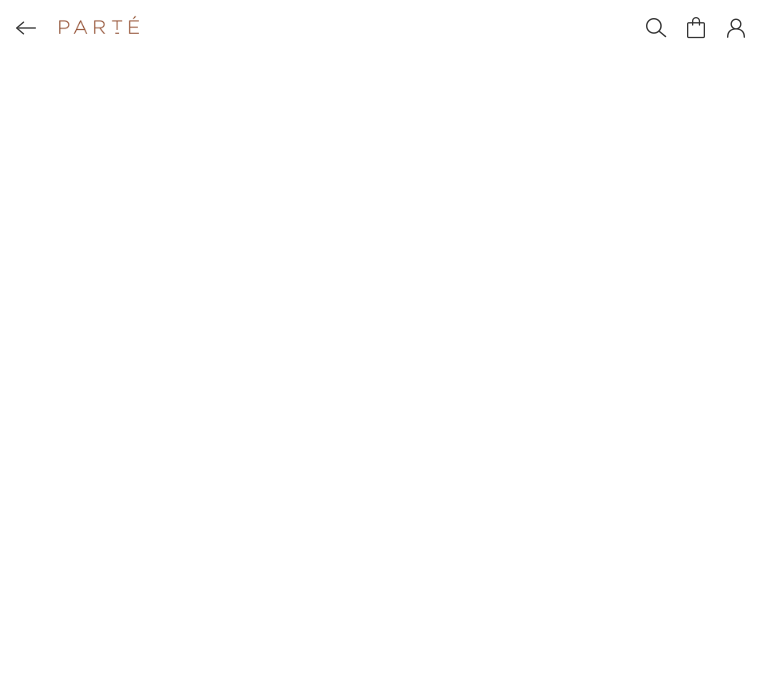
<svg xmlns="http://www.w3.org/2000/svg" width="762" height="686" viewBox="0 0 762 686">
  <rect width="100%" height="100%" fill="#fff"/>
  <image x="16" y="21" width="20" height="14" href="images/1.png"/>
  <image x="59" y="15" width="80" height="19" href="images/2.png"/>
  <image x="646" y="18" width="21" height="20" href="images/3.png"/>
  <image x="687" y="17" width="18" height="22" href="images/4.png"/>
  <image x="727" y="18" width="18" height="20" href="images/5.png"/>
</svg>
